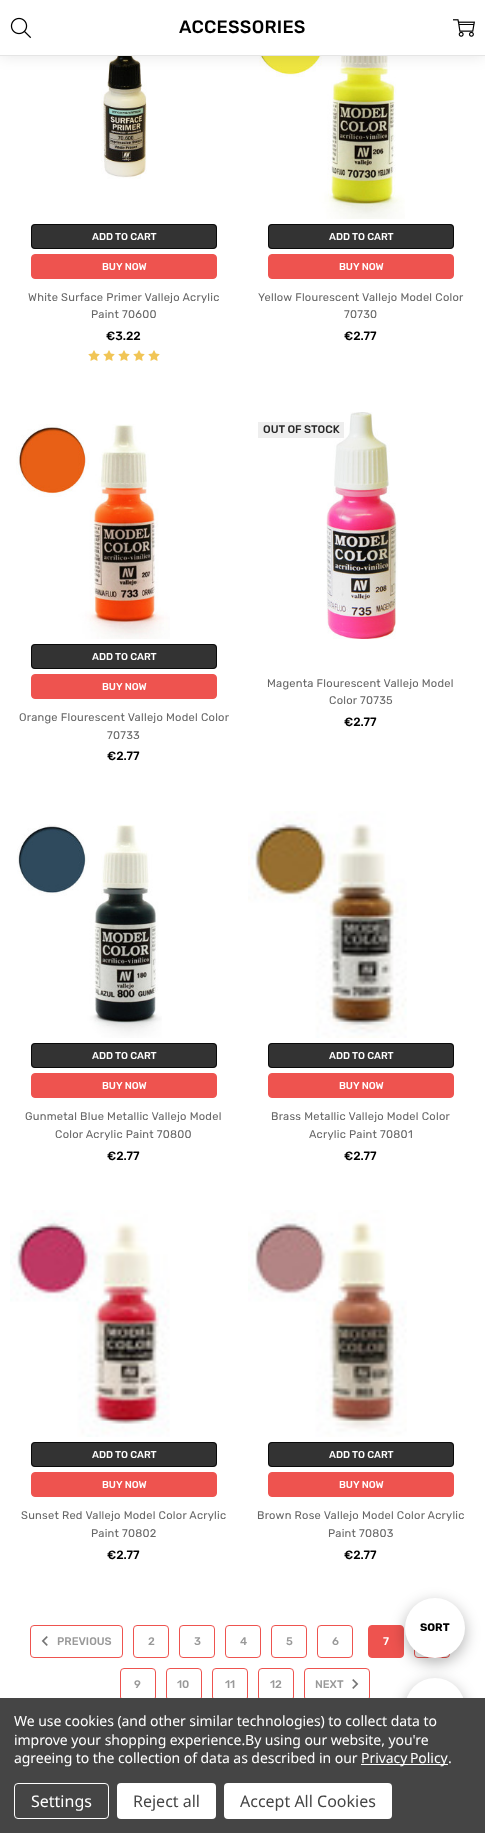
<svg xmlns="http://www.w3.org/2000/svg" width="485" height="1833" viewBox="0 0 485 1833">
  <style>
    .t1 { font: 500 18px Rubik; letter-spacing: 0.25px; fill: #000; }
    .t2 { font: bold 11px Rubik; fill: #000; }
    .t3 { font: 500 10px Rubik; fill: #fff; }
    .t4 { font: 11.1px Rubik; letter-spacing: 0.25px; fill: #666; }
    .t5 { font: 500 12px Rubik; fill: #000; }
    .t6 { font: 500 11px Rubik; fill: #282828; }
    .t7 { font: 500 11px Rubik; fill: #999; }
    .t8 { font: 500 11px Rubik; fill: #fff; }
    .t9 { font: 14px Noto Sans; letter-spacing: -0.05px; fill: #fff; }
    .t10 { font: 16px Noto Sans; fill: #fff; }
    .t11 { font: 16px Noto Sans; fill: #454545; }
  </style>
  <rect width="100%" height="100%" fill="#fff"/>
  <image x="101" y="56" width="46" height="123" href="images/3.png"/>
  <image x="254" y="56" width="151" height="163" href="images/5.png"/>
  <rect x="0" y="0" width="485" height="56" fill="#0000001a" filter="blur(7.5px)"/>
  <rect x="0" y="0" width="485" height="55" fill="#fff"/>
  <rect x="0" y="55" width="485" height="1" fill="#e5e5e5"/>
  <image x="10" y="17" width="22" height="22" href="images/1.png"/>
  <image x="453" y="19" width="22" height="18" href="images/2.png"/>
  <text x="179" y="33" class="t1">ACCESSORIES</text>
  <rect x="368.5" y="1625.5" width="35" height="32" rx="3.5" fill="#ee534f" stroke="#ee534f"/>
  <rect x="414.5" y="1625.5" width="35" height="32" rx="3.5" fill="none" stroke="#ee534f"/>
  <rect x="405" y="1683" width="60" height="60" rx="30" fill="#0000004d" filter="blur(7.5px)"/>
  <circle cx="435" cy="1708" r="30" fill="#fff"/>
  <rect x="405" y="1603" width="60" height="60" rx="30" fill="#0000004d" filter="blur(7.5px)"/>
  <circle cx="435" cy="1628" r="30" fill="#fff"/>
  <text x="420" y="1631" class="t2">SORT</text>
  <rect x="31" y="224" width="186" height="25" rx="4" fill="#333"/>
  <rect x="31.5" y="224.5" width="185" height="24" rx="3.5" fill="none" stroke="#000000cc"/>
  <text x="92" y="240" class="t3">ADD TO CART</text>
  <rect x="31.5" y="254.5" width="185" height="24" rx="3.5" fill="#ee534f" stroke="#ee534f"/>
  <text x="102" y="270" class="t3">BUY NOW</text>
  <text x="28" y="301" class="t4">White Surface Primer Vallejo Acrylic</text>
  <text x="91" y="318" class="t4">Paint 70600</text>
  <text x="106" y="340" class="t5">€3.22</text>
  <image x="88" y="350" width="12" height="11" href="images/4.png"/>
  <image x="103" y="350" width="12" height="11" href="images/4.png"/>
  <image x="118" y="350" width="12" height="11" href="images/4.png"/>
  <image x="133" y="350" width="12" height="11" href="images/4.png"/>
  <image x="148" y="350" width="12" height="11" href="images/4.png"/>
  <rect x="268" y="224" width="186" height="25" rx="4" fill="#333"/>
  <rect x="268.5" y="224.5" width="185" height="24" rx="3.5" fill="none" stroke="#000000cc"/>
  <text x="329" y="240" class="t3">ADD TO CART</text>
  <rect x="268.5" y="254.5" width="185" height="24" rx="3.5" fill="#ee534f" stroke="#ee534f"/>
  <text x="339" y="270" class="t3">BUY NOW</text>
  <text x="258" y="301" class="t4">Yellow Flourescent Vallejo Model Color</text>
  <text x="344" y="318" class="t4">70730</text>
  <text x="344" y="340" class="t5">€2.77</text>
  <image x="16" y="424" width="154" height="215" href="images/6.png"/>
  <rect x="31" y="644" width="186" height="25" rx="4" fill="#333"/>
  <rect x="31.5" y="644.5" width="185" height="24" rx="3.5" fill="none" stroke="#000000cc"/>
  <text x="92" y="660" class="t3">ADD TO CART</text>
  <rect x="31.5" y="674.5" width="185" height="24" rx="3.5" fill="#ee534f" stroke="#ee534f"/>
  <text x="102" y="690" class="t3">BUY NOW</text>
  <text x="19" y="721" class="t4">Orange Flourescent Vallejo Model Color</text>
  <text x="107" y="739" class="t4">70733</text>
  <text x="107" y="760" class="t5">€2.77</text>
  <image x="326" y="412" width="72" height="227" href="images/7.png"/>
  <rect x="258" y="422" width="86" height="16" fill="#eee"/>
  <text x="263" y="433" class="t6">OUT OF STOCK</text>
  <text x="267" y="687" class="t4">Magenta Flourescent Vallejo Model</text>
  <text x="329" y="704" class="t4">Color 70735</text>
  <text x="344" y="726" class="t5">€2.77</text>
  <image x="17" y="824" width="145" height="214" href="images/8.png"/>
  <rect x="31" y="1043" width="186" height="25" rx="4" fill="#333"/>
  <rect x="31.5" y="1043.5" width="185" height="24" rx="3.5" fill="none" stroke="#000000cc"/>
  <text x="92" y="1059" class="t3">ADD TO CART</text>
  <rect x="31.5" y="1073.5" width="185" height="24" rx="3.5" fill="#ee534f" stroke="#ee534f"/>
  <text x="102" y="1089" class="t3">BUY NOW</text>
  <text x="25" y="1120" class="t4">Gunmetal Blue Metallic Vallejo Model</text>
  <text x="55" y="1138" class="t4">Color Acrylic Paint 70800</text>
  <text x="107" y="1160" class="t5">€2.77</text>
  <image x="248" y="811" width="159" height="227" href="images/9.png"/>
  <rect x="268" y="1043" width="186" height="25" rx="4" fill="#333"/>
  <rect x="268.5" y="1043.5" width="185" height="24" rx="3.5" fill="none" stroke="#000000cc"/>
  <text x="329" y="1059" class="t3">ADD TO CART</text>
  <rect x="268.5" y="1073.5" width="185" height="24" rx="3.5" fill="#ee534f" stroke="#ee534f"/>
  <text x="339" y="1089" class="t3">BUY NOW</text>
  <text x="271" y="1120" class="t4">Brass Metallic Vallejo Model Color</text>
  <text x="309" y="1138" class="t4">Acrylic Paint 70801</text>
  <text x="344" y="1160" class="t5">€2.77</text>
  <image x="10" y="1210" width="160" height="227" href="images/10.png"/>
  <rect x="31" y="1442" width="186" height="25" rx="4" fill="#333"/>
  <rect x="31.5" y="1442.5" width="185" height="24" rx="3.5" fill="none" stroke="#000000cc"/>
  <text x="92" y="1458" class="t3">ADD TO CART</text>
  <rect x="31.5" y="1472.5" width="185" height="24" rx="3.5" fill="#ee534f" stroke="#ee534f"/>
  <text x="102" y="1488" class="t3">BUY NOW</text>
  <text x="21" y="1519" class="t4">Sunset Red Vallejo Model Color Acrylic</text>
  <text x="91" y="1537" class="t4">Paint 70802</text>
  <text x="107" y="1559" class="t5">€2.77</text>
  <image x="248" y="1210" width="159" height="227" href="images/11.png"/>
  <rect x="268" y="1442" width="186" height="25" rx="4" fill="#333"/>
  <rect x="268.5" y="1442.5" width="185" height="24" rx="3.5" fill="none" stroke="#000000cc"/>
  <text x="329" y="1458" class="t3">ADD TO CART</text>
  <rect x="268.5" y="1472.5" width="185" height="24" rx="3.5" fill="#ee534f" stroke="#ee534f"/>
  <text x="339" y="1488" class="t3">BUY NOW</text>
  <text x="257" y="1519" class="t4">Brown Rose Vallejo Model Color Acrylic</text>
  <text x="328" y="1537" class="t4">Paint 70803</text>
  <text x="344" y="1559" class="t5">€2.77</text>
  <rect x="30.5" y="1625.5" width="92" height="32" rx="3.5" fill="none" stroke="#ee534f"/>
  <image x="41" y="1636" width="7" height="10" href="images/12.png"/>
  <text x="57" y="1645" class="t7">PREVIOUS</text>
  <rect x="133.5" y="1625.5" width="35" height="32" rx="3.5" fill="none" stroke="#ee534f"/>
  <text x="148" y="1645" class="t7">2</text>
  <rect x="179.5" y="1625.5" width="35" height="32" rx="3.5" fill="none" stroke="#ee534f"/>
  <text x="194" y="1645" class="t7">3</text>
  <rect x="225.5" y="1625.5" width="35" height="32" rx="3.5" fill="none" stroke="#ee534f"/>
  <text x="240" y="1645" class="t7">4</text>
  <rect x="271.5" y="1625.5" width="35" height="32" rx="3.5" fill="none" stroke="#ee534f"/>
  <text x="286" y="1645" class="t7">5</text>
  <rect x="317.5" y="1625.5" width="35" height="32" rx="3.5" fill="none" stroke="#ee534f"/>
  <text x="332" y="1645" class="t7">6</text>
  <text x="383" y="1645" class="t8">7</text>
  <rect x="120.5" y="1668.5" width="35" height="32" rx="3.5" fill="none" stroke="#ee534f"/>
  <text x="134" y="1688" class="t7">9</text>
  <rect x="166.5" y="1668.5" width="35" height="32" rx="3.5" fill="none" stroke="#ee534f"/>
  <text x="177" y="1688" class="t7">10</text>
  <rect x="212.5" y="1668.5" width="35" height="32" rx="3.5" fill="none" stroke="#ee534f"/>
  <text x="225" y="1688" class="t7">11</text>
  <rect x="258.5" y="1668.5" width="35" height="32" rx="3.5" fill="none" stroke="#ee534f"/>
  <text x="270" y="1688" class="t7">12</text>
  <rect x="304.5" y="1668.5" width="65" height="32" rx="3.5" fill="none" stroke="#ee534f"/>
  <text x="315" y="1688" class="t7">NEXT</text>
  <image x="352" y="1679" width="7" height="10" href="images/13.png"/>
  <rect x="0" y="1698" width="485" height="135" fill="#454545"/>
  <text x="14" y="1726" class="t9">We use cookies (and other similar technologies) to collect data to</text>
  <text x="14" y="1745" class="t9">improve your shopping experience.By using our website, you're</text>
  <text x="14" y="1763" class="t9">agreeing to the collection of data as described in our</text>
  <rect x="361" y="1764" width="87" height="1" fill="#fff"/>
  <text x="361" y="1763" word-spacing="-1" class="t9">Privacy Policy</text>
  <text x="448" y="1763" class="t9">.</text>
  <rect x="14.5" y="1783.5" width="94" height="35" rx="3.5" fill="none" stroke="#fff"/>
  <text x="31" y="1807" class="t10">Settings</text>
  <rect x="117" y="1783" width="99" height="36" rx="4" fill="#fff"/>
  <text x="133" y="1807" class="t11">Reject all</text>
  <rect x="224" y="1783" width="168" height="36" rx="4" fill="#fff"/>
  <text x="240" y="1807" class="t11">Accept All Cookies</text>
</svg>
